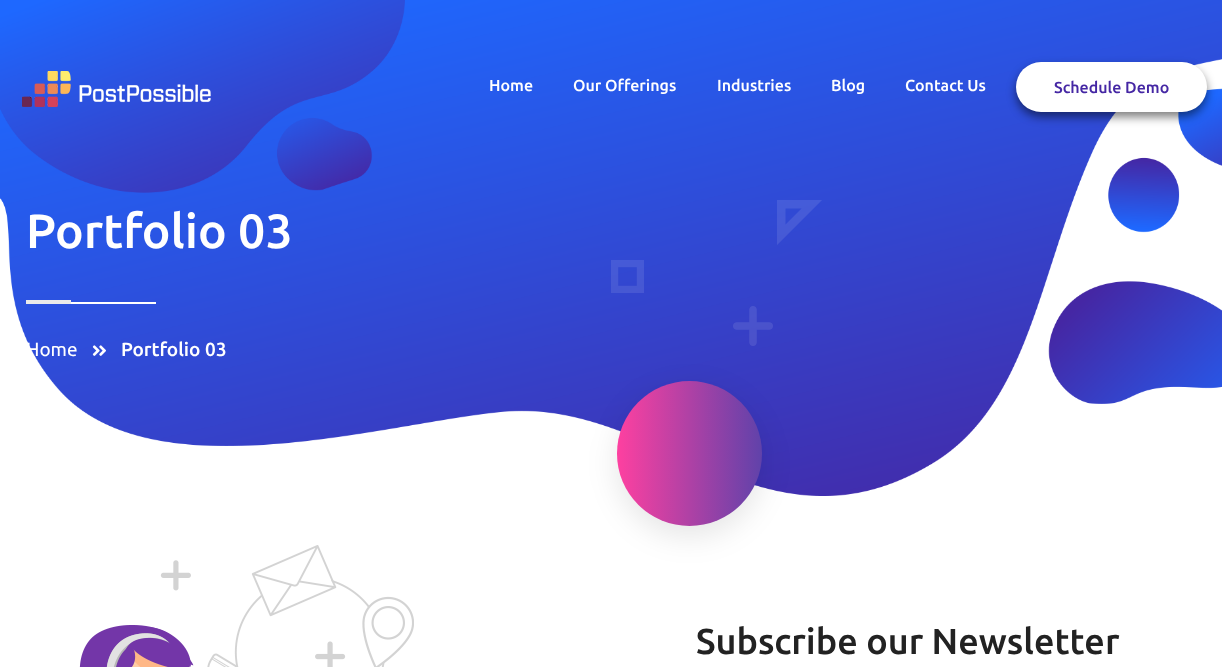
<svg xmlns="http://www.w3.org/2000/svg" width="1222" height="667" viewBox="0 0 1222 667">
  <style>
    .t1 { font: 500 16px Ubuntu; fill: #fff; }
    .t2 { font: 500 16px Ubuntu; fill: #4527a4; }
    .t3 { font: 500 48px Ubuntu; fill: #fff; }
    .t4 { font: 19px Ubuntu; fill: #fff; }
    .t5 { font: 500 19px Ubuntu; fill: #fff; }
    .t6 { font: 500 36px Ubuntu; fill: #222; }
  </style>
  <defs>
    <linearGradient id="g1" gradientUnits="userSpaceOnUse" x1="617" y1="454" x2="762" y2="454"><stop offset="0" stop-color="#fe40a0"/><stop offset="1" stop-color="#6042aa"/></linearGradient>
  </defs>
  <rect width="100%" height="100%" fill="#fff"/>
  <image x="0" y="0" width="1222" height="496" href="images/2.png"/>
  <image x="22" y="71" width="189" height="36" href="images/1.png"/>
  <text x="489" y="91" class="t1">Home</text>
  <text x="573" y="91" class="t1">Our Offerings</text>
  <text x="717" y="91" class="t1">Industries</text>
  <text x="831" y="91" class="t1">Blog</text>
  <text x="905" y="91" class="t1">Contact Us</text>
  <rect x="1016" y="67" width="191" height="50" rx="25" fill="#00000080" filter="blur(5px)"/>
  <rect x="1016" y="62" width="191" height="50" rx="25" fill="#fff"/>
  <text x="1054" y="93" class="t2">Schedule Demo</text>
  <text x="26" y="248" class="t3">Portfolio 03</text>
  <rect x="26" y="300" width="45" height="4" fill="#eaeaea"/>
  <rect x="71" y="302" width="85" height="2" fill="#fff"/>
  <text x="26" y="356" class="t4">Home</text>
  <image x="92" y="345" width="14" height="11" href="images/3.png"/>
  <text x="121" y="356" class="t5">Portfolio 03</text>
  <image x="777" y="200" width="45" height="45" href="images/4.png"/>
  <image x="611" y="260" width="33" height="33" href="images/5.png"/>
  <image x="733" y="306" width="40" height="40" href="images/6.png"/>
  <rect x="617" y="391" width="145" height="145" rx="72.5" fill="#0000001a" filter="blur(15px)"/>
  <circle cx="689.5" cy="453.5" r="72.5" fill="url(#g1)"/>
  <image x="160" y="545" width="254" height="122" href="images/8.png"/>
  <image x="79" y="625" width="115" height="42" href="images/7.png"/>
  <text x="696" y="654" class="t6">Subscribe our Newsletter</text>
</svg>
